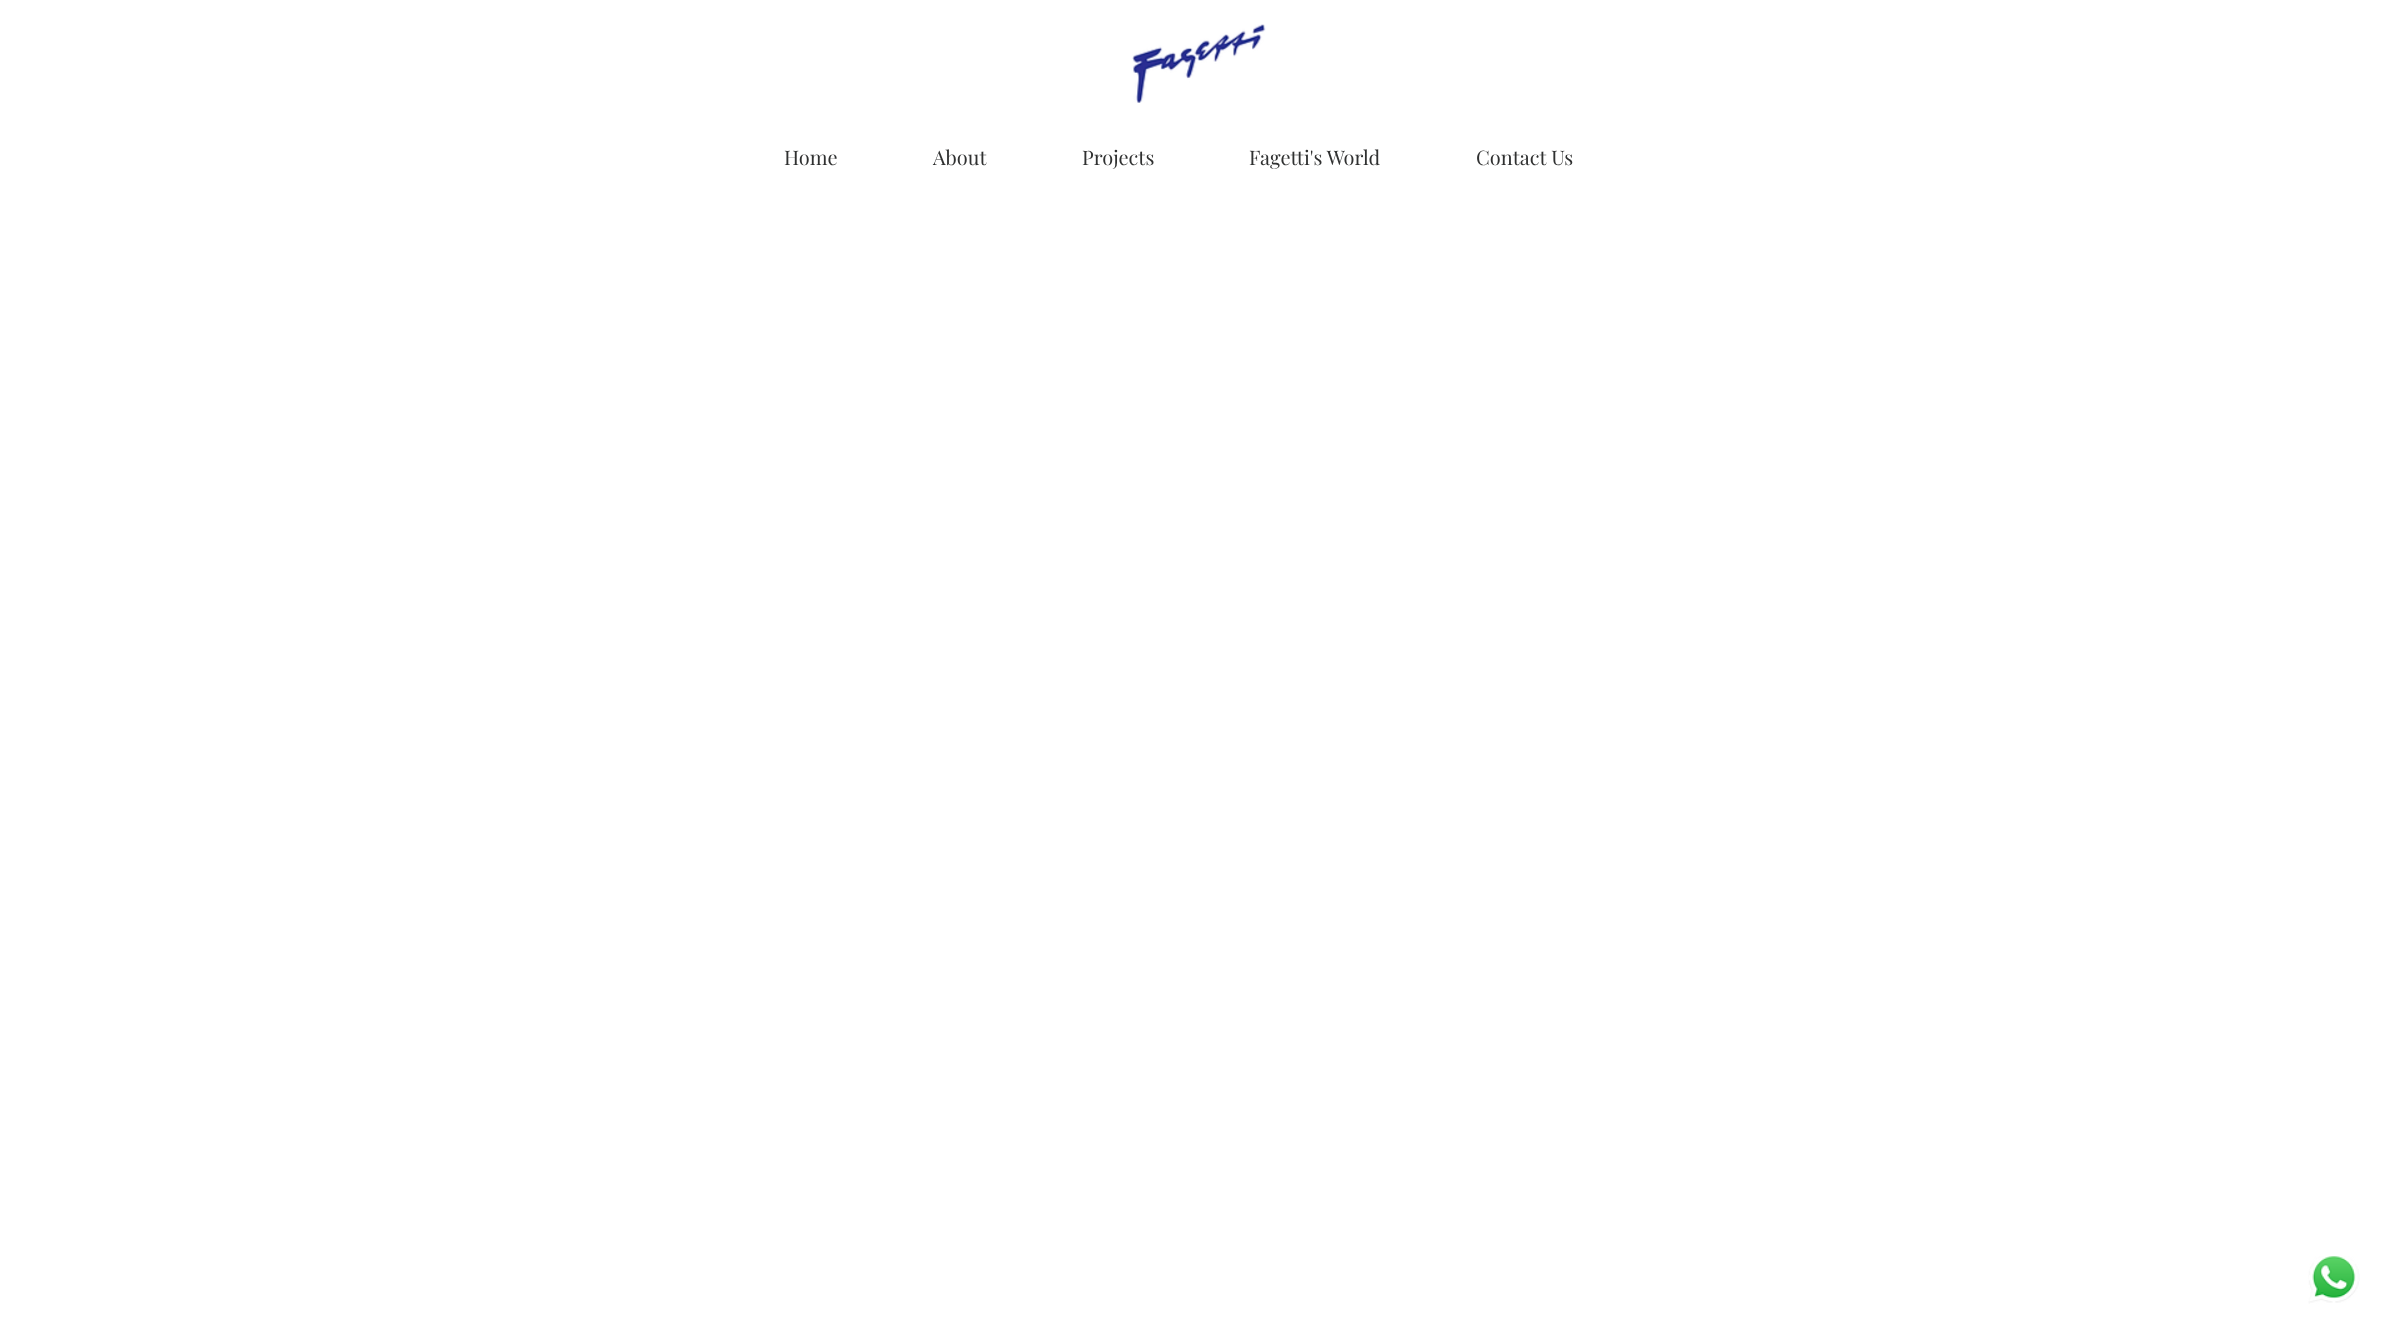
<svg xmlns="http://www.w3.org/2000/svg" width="2396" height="1339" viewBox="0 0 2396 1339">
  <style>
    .t1 { font: 20px Playfair Display; fill: #303131; }
  </style>
  <rect width="100%" height="100%" fill="#fff"/>
  <image x="1132" y="24" width="134" height="79" href="images/1.png"/>
  <text x="784" y="165" class="t1">Home</text>
  <text x="933" y="165" class="t1">About</text>
  <text x="1082" y="165" class="t1">Projects</text>
  <text x="1249" y="165" class="t1">Fagetti's World</text>
  <text x="1476" y="165" class="t1">Contact Us</text>
  <image x="2308" y="1256" width="52" height="48" href="images/2.png"/>
</svg>
